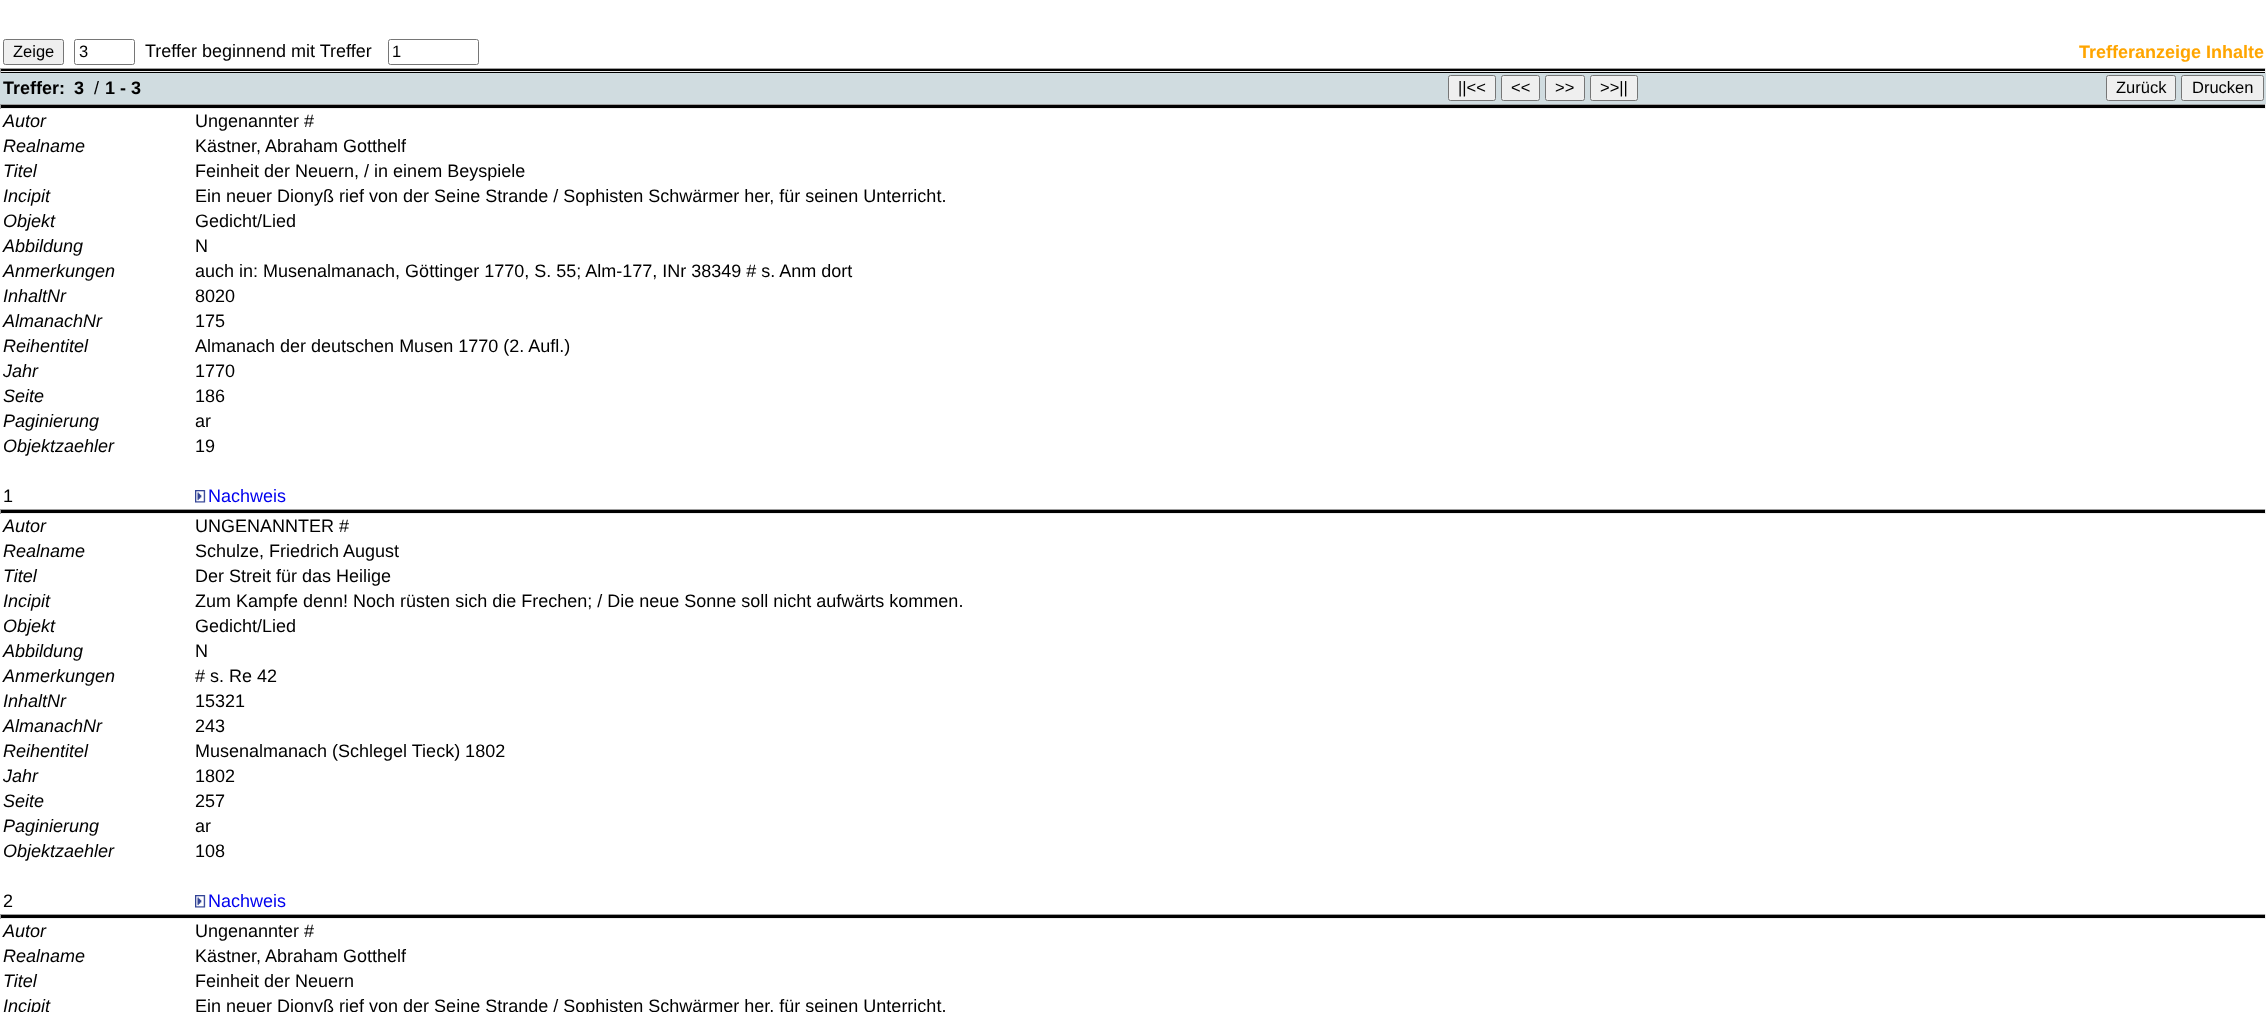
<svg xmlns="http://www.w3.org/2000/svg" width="2266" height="1012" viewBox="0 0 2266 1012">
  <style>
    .t1 { font: 16.5px Liberation Sans; fill: #000; }
    .t2 { font: 18px Liberation Sans; fill: #000; }
    .t3 { font: bold 18px Liberation Sans; fill: #ffa500; }
    .t4 { font: bold 18px Liberation Sans; fill: #000; }
    .t5 { font: italic 18px Liberation Sans; fill: #000; }
    .t6 { font: 18px Liberation Sans; fill: #00e; }
  </style>
  <rect width="100%" height="100%" fill="#fff"/>
  <rect x="3.5" y="39.5" width="60" height="25" rx="2" fill="#efefef" stroke="#767676"/>
  <text x="13" y="57" class="t1">Zeige</text>
  <rect x="74.5" y="39.5" width="60" height="25" rx="2" fill="none" stroke="#767676"/>
  <text x="79" y="57" class="t1">3</text>
  <text x="145" y="57" class="t2">Treffer beginnend mit Treffer</text>
  <rect x="388.5" y="39.5" width="90" height="25" rx="2" fill="none" stroke="#767676"/>
  <text x="392" y="57" class="t1">1</text>
  <text x="2079" y="58" class="t3">Trefferanzeige Inhalte</text>
  <rect x="0" y="69" width="2266" height="4" fill="#000"/>
  <rect x="0" y="68" width="2266" height="1" fill="#9f9f9f"/>
  <rect x="2265" y="68" width="1" height="5" fill="#eee"/>
  <rect x="0" y="71" width="2266" height="1" fill="#eee"/>
  <rect x="0" y="68" width="1" height="5" fill="#9f9f9f"/>
  <rect x="0" y="73" width="2266" height="31" fill="#d0dce0"/>
  <text x="3" y="94" class="t4">Treffer:</text>
  <text x="74" y="94" class="t4">3</text>
  <text x="94" y="94" class="t2">/</text>
  <text x="105" y="94" class="t4">1 - 3</text>
  <rect x="1448.5" y="75.5" width="47" height="25" rx="2" fill="#efefef" stroke="#767676"/>
  <text x="1458" y="93" class="t1">||&lt;&lt;</text>
  <rect x="1501.5" y="75.5" width="38" height="25" rx="2" fill="#efefef" stroke="#767676"/>
  <text x="1511" y="93" class="t1">&lt;&lt;</text>
  <rect x="1545.5" y="75.5" width="39" height="25" rx="2" fill="#efefef" stroke="#767676"/>
  <text x="1555" y="93" class="t1">&gt;&gt;</text>
  <rect x="1590.5" y="75.5" width="47" height="25" rx="2" fill="#efefef" stroke="#767676"/>
  <text x="1600" y="93" class="t1">&gt;&gt;||</text>
  <rect x="2106.5" y="75.5" width="69" height="25" rx="2" fill="#efefef" stroke="#767676"/>
  <text x="2116" y="93" class="t1">Zurück</text>
  <rect x="2181.5" y="75.5" width="82" height="25" rx="2" fill="#efefef" stroke="#767676"/>
  <text x="2192" y="93" class="t1">Drucken</text>
  <rect x="0" y="105" width="2266" height="3" fill="#000"/>
  <rect x="0" y="104" width="2266" height="1" fill="#9f9f9f"/>
  <rect x="2265" y="104" width="1" height="5" fill="#eee"/>
  <rect x="0" y="108" width="2266" height="1" fill="#eee"/>
  <rect x="0" y="104" width="1" height="5" fill="#9f9f9f"/>
  <text x="3" y="127" class="t5">Autor</text>
  <text x="195" y="127" class="t2">Ungenannter #</text>
  <text x="3" y="152" class="t5">Realname</text>
  <text x="195" y="152" class="t2">Kästner, Abraham Gotthelf</text>
  <text x="3" y="177" class="t5">Titel</text>
  <text x="195" y="177" class="t2">Feinheit der Neuern, / in einem Beyspiele</text>
  <text x="3" y="202" class="t5">Incipit</text>
  <text x="195" y="202" class="t2">Ein neuer Dionyß rief von der Seine Strande / Sophisten Schwärmer her, für seinen Unterricht.</text>
  <text x="3" y="227" class="t5">Objekt</text>
  <text x="195" y="227" class="t2">Gedicht/Lied</text>
  <text x="3" y="252" class="t5">Abbildung</text>
  <text x="195" y="252" class="t2">N</text>
  <text x="3" y="277" class="t5">Anmerkungen</text>
  <text x="195" y="277" class="t2">auch in: Musenalmanach, Göttinger 1770, S. 55; Alm-177, INr 38349 # s. Anm dort</text>
  <text x="3" y="302" class="t5">InhaltNr</text>
  <text x="195" y="302" class="t2">8020</text>
  <text x="3" y="327" class="t5">AlmanachNr</text>
  <text x="195" y="327" class="t2">175</text>
  <text x="3" y="352" class="t5">Reihentitel</text>
  <text x="195" y="352" class="t2">Almanach der deutschen Musen 1770 (2. Aufl.)</text>
  <text x="3" y="377" class="t5">Jahr</text>
  <text x="195" y="377" class="t2">1770</text>
  <text x="3" y="402" class="t5">Seite</text>
  <text x="195" y="402" class="t2">186</text>
  <text x="3" y="427" class="t5">Paginierung</text>
  <text x="195" y="427" class="t2">ar</text>
  <text x="3" y="452" class="t5">Objektzaehler</text>
  <text x="195" y="452" class="t2">19</text>
  <text x="3" y="502" class="t2">1</text>
  <image x="195" y="490" width="11" height="13" href="images/1.png"/>
  <text x="208" y="502" class="t6">Nachweis</text>
  <rect x="0" y="510" width="2266" height="3" fill="#000"/>
  <rect x="0" y="509" width="2266" height="1" fill="#9f9f9f"/>
  <rect x="2265" y="509" width="1" height="5" fill="#eee"/>
  <rect x="0" y="513" width="2266" height="1" fill="#eee"/>
  <rect x="0" y="509" width="1" height="5" fill="#9f9f9f"/>
  <text x="3" y="532" class="t5">Autor</text>
  <text x="195" y="532" class="t2">UNGENANNTER #</text>
  <text x="3" y="557" class="t5">Realname</text>
  <text x="195" y="557" class="t2">Schulze, Friedrich August</text>
  <text x="3" y="582" class="t5">Titel</text>
  <text x="195" y="582" class="t2">Der Streit für das Heilige</text>
  <text x="3" y="607" class="t5">Incipit</text>
  <text x="195" y="607" class="t2">Zum Kampfe denn! Noch rüsten sich die Frechen; / Die neue Sonne soll nicht aufwärts kommen.</text>
  <text x="3" y="632" class="t5">Objekt</text>
  <text x="195" y="632" class="t2">Gedicht/Lied</text>
  <text x="3" y="657" class="t5">Abbildung</text>
  <text x="195" y="657" class="t2">N</text>
  <text x="3" y="682" class="t5">Anmerkungen</text>
  <text x="195" y="682" class="t2"># s. Re 42</text>
  <text x="3" y="707" class="t5">InhaltNr</text>
  <text x="195" y="707" class="t2">15321</text>
  <text x="3" y="732" class="t5">AlmanachNr</text>
  <text x="195" y="732" class="t2">243</text>
  <text x="3" y="757" class="t5">Reihentitel</text>
  <text x="195" y="757" class="t2">Musenalmanach (Schlegel Tieck) 1802</text>
  <text x="3" y="782" class="t5">Jahr</text>
  <text x="195" y="782" class="t2">1802</text>
  <text x="3" y="807" class="t5">Seite</text>
  <text x="195" y="807" class="t2">257</text>
  <text x="3" y="832" class="t5">Paginierung</text>
  <text x="195" y="832" class="t2">ar</text>
  <text x="3" y="857" class="t5">Objektzaehler</text>
  <text x="195" y="857" class="t2">108</text>
  <text x="3" y="907" class="t2">2</text>
  <image x="195" y="895" width="11" height="13" href="images/1.png"/>
  <text x="208" y="907" class="t6">Nachweis</text>
  <rect x="0" y="915" width="2266" height="3" fill="#000"/>
  <rect x="0" y="914" width="2266" height="1" fill="#9f9f9f"/>
  <rect x="2265" y="914" width="1" height="5" fill="#eee"/>
  <rect x="0" y="918" width="2266" height="1" fill="#eee"/>
  <rect x="0" y="914" width="1" height="5" fill="#9f9f9f"/>
  <text x="3" y="937" class="t5">Autor</text>
  <text x="195" y="937" class="t2">Ungenannter #</text>
  <text x="3" y="962" class="t5">Realname</text>
  <text x="195" y="962" class="t2">Kästner, Abraham Gotthelf</text>
  <text x="3" y="987" class="t5">Titel</text>
  <text x="195" y="987" class="t2">Feinheit der Neuern</text>
  <text x="3" y="1012" class="t5">Incipit</text>
  <text x="195" y="1012" class="t2">Ein neuer Dionyß rief von der Seine Strande / Sophisten Schwärmer her, für seinen Unterricht.</text>
</svg>
